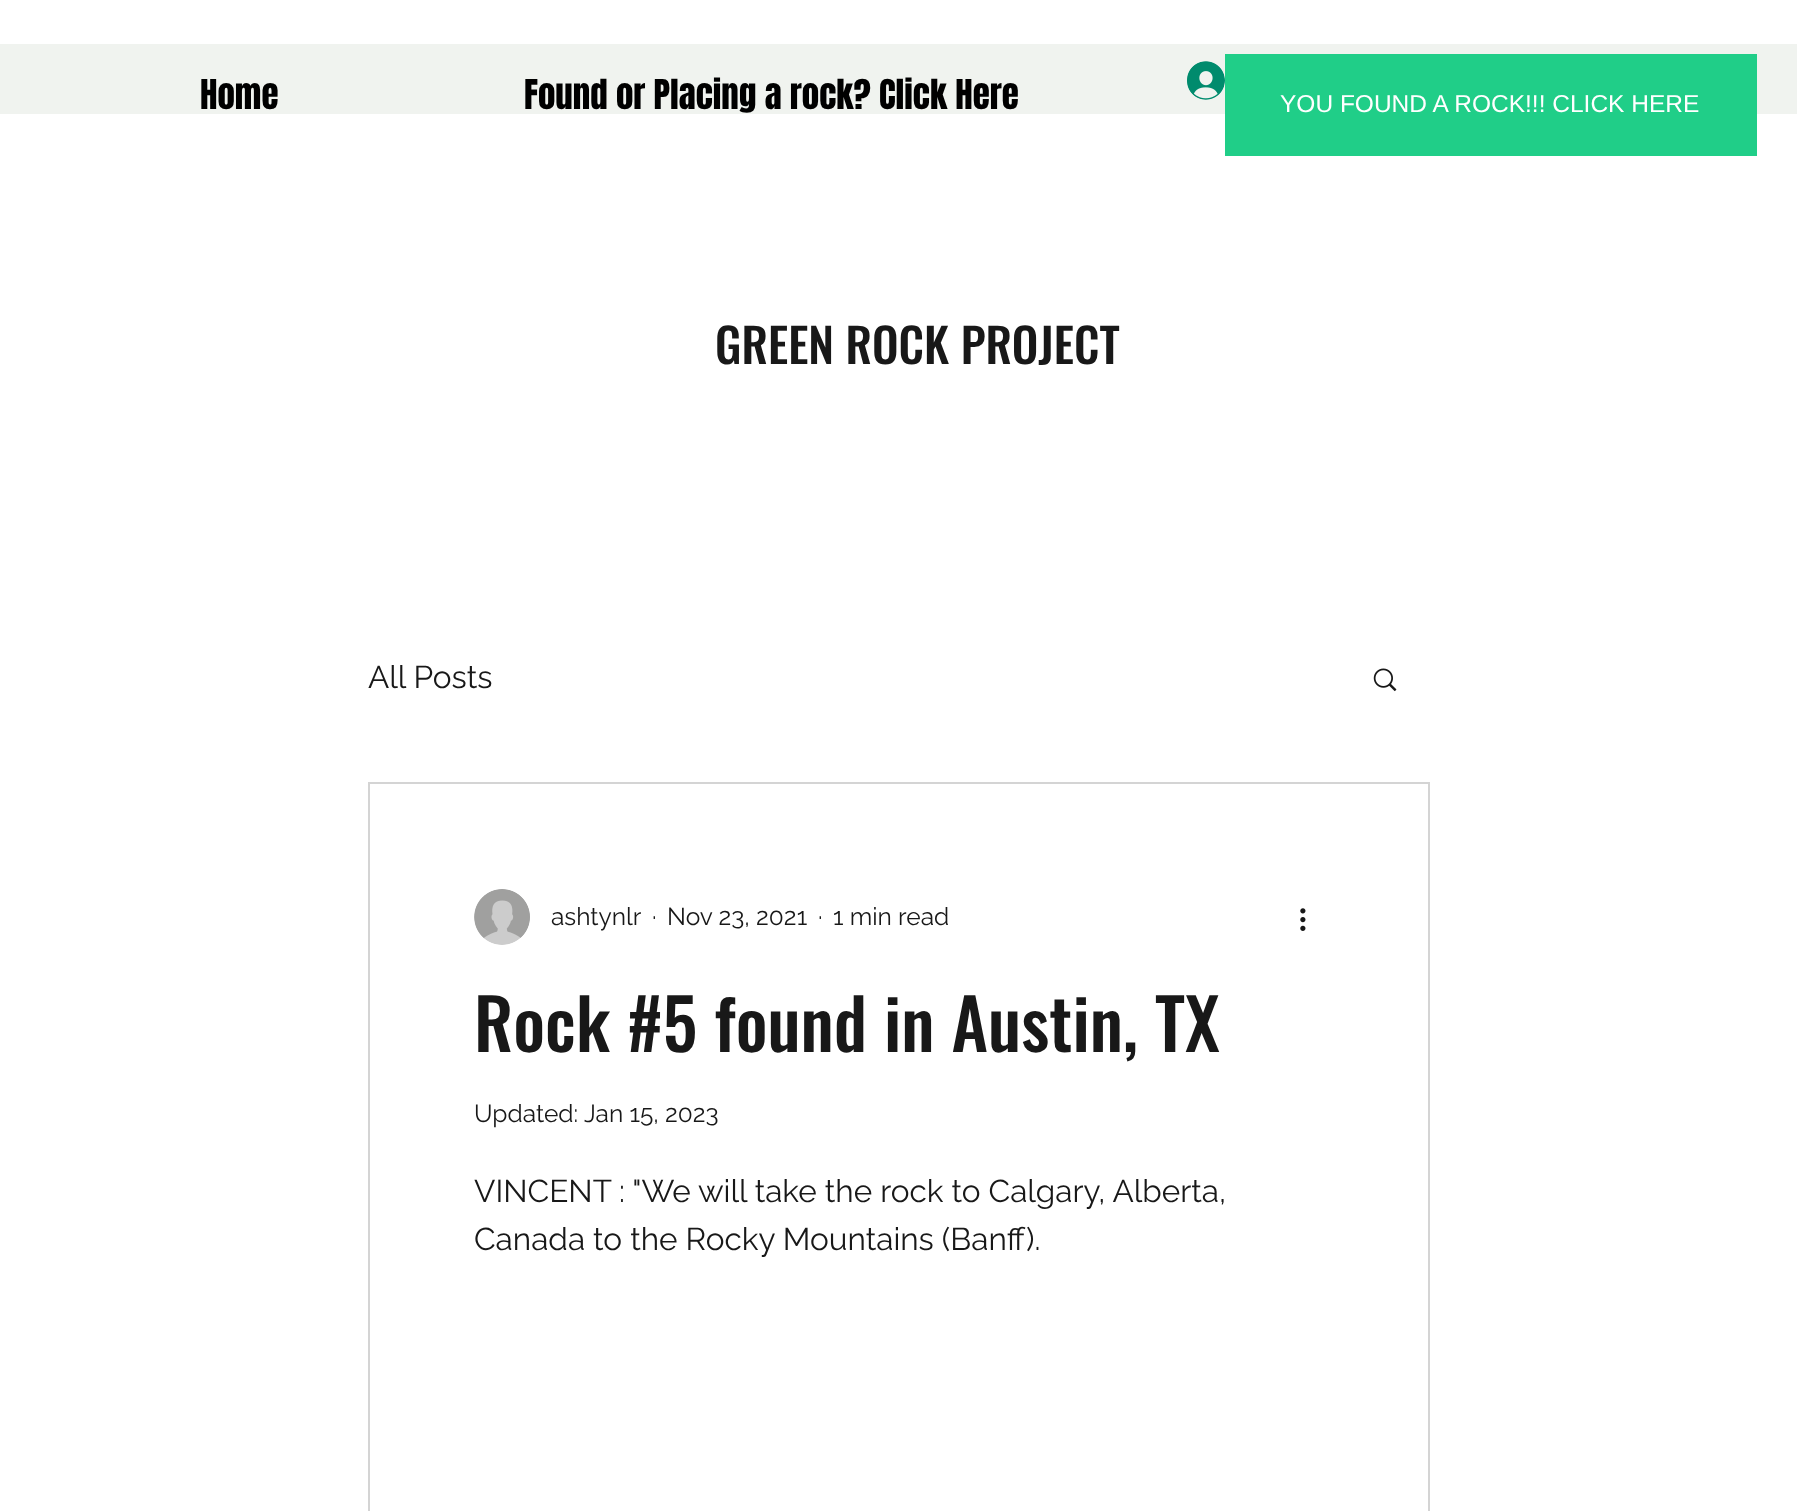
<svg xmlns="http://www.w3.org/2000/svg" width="1797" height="1511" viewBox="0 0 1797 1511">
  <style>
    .t1 { font: 35px Anton; fill: #000; }
    .t2 { font: 24.5px Liberation Sans; fill: #fff; }
    .t3 { font: 500 47.25px Oswald; fill: #181818; }
    .t4 { font: 31.5px Raleway; fill: #181818; }
    .t5 { font: 24.5px Raleway; fill: #181818; }
    .t6 { font: 500 70px Oswald; fill: #181818; }
  </style>
  <rect width="100%" height="100%" fill="#fff"/>
  <rect x="0" y="44" width="1797" height="70" fill="#f0f3ef"/>
  <text x="200" y="109" class="t1">Home</text>
  <text x="524" y="109" class="t1">Found or Placing a rock? Click Here</text>
  <image x="1187" y="61" width="38" height="39" href="images/1.png"/>
  <rect x="1225" y="54" width="532" height="102" fill="#20ce88"/>
  <text x="1280" y="112" class="t2">YOU FOUND A ROCK!!! CLICK HERE</text>
  <text x="715" y="364" class="t3">GREEN ROCK PROJECT</text>
  <text x="368" y="688" class="t4">All Posts</text>
  <image x="1373" y="668" width="24" height="24" href="images/2.png"/>
  <rect x="369" y="783" width="1060" height="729" fill="none" stroke="#d4d4d4" stroke-width="2"/>
  <image x="474" y="889" width="56" height="56" href="images/3.png"/>
  <text x="551" y="925" class="t5">ashtynlr</text>
  <text x="652" y="925" class="t5">·</text>
  <text x="667" y="925" class="t5">Nov 23, 2021</text>
  <text x="818" y="925" class="t5">·</text>
  <text x="833" y="925" class="t5">1 min read</text>
  <image x="1300" y="908" width="6" height="23" href="images/4.png"/>
  <text x="474" y="1052" class="t6">Rock #5 found in Austin, TX</text>
  <text x="474" y="1122" class="t5">Updated:</text>
  <text x="584" y="1122" class="t5">Jan 15, 2023</text>
  <text x="474" y="1202" class="t4">VINCENT : "We will take the rock to Calgary, Alberta,</text>
  <text x="474" y="1250" class="t4">Canada to the Rocky Mountains (Banff).</text>
</svg>
